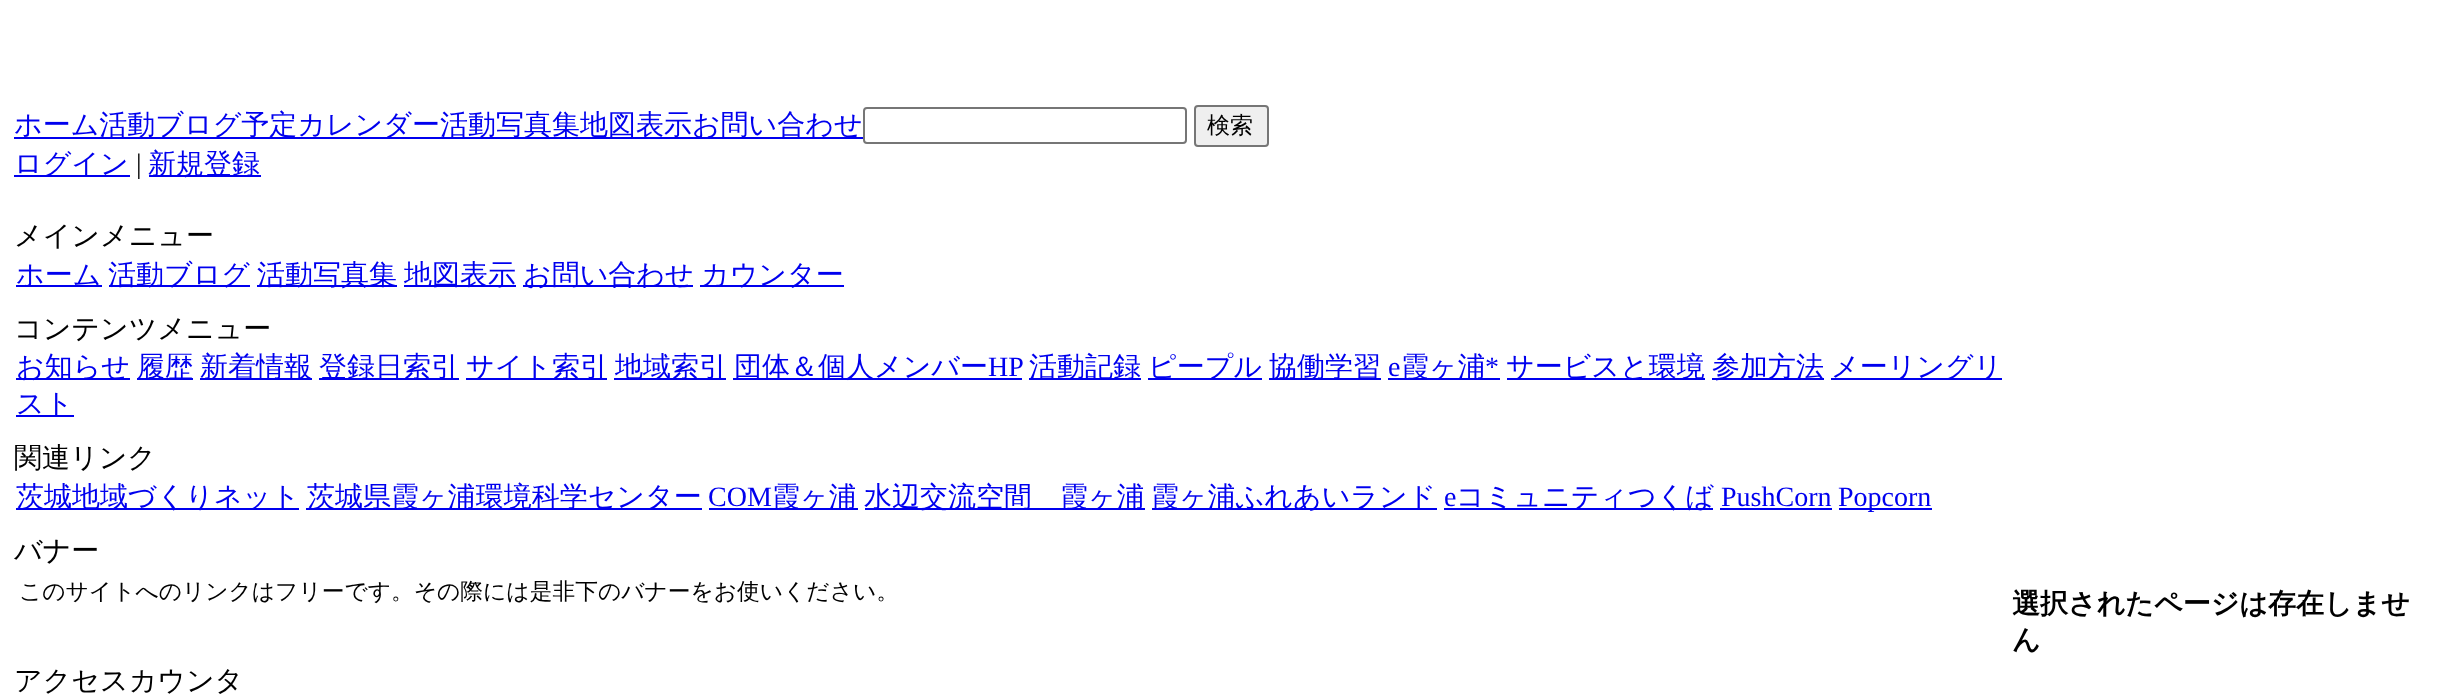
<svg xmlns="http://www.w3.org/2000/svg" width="2438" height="697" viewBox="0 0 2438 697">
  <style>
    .t1 { font: 500 28px WenQuanYi Zen Hei; fill: #00e; }
    .t2 { font: 500 23px WenQuanYi Zen Hei; fill: #000; }
    .t3 { font: 28px Liberation Serif; fill: #000; }
    .t4 { font: 500 28px WenQuanYi Zen Hei; fill: #000; }
    .t5 { font: 28px Liberation Serif; fill: #00e; }
    .t6 { font: 500 22.75px WenQuanYi Zen Hei; fill: #000; }
    .t7 { font: bold 28px WenQuanYi Zen Hei; fill: #000; }
  </style>
  <rect width="100%" height="100%" fill="#fff"/>
  <rect x="14" y="137" width="849" height="2" fill="#00e"/>
  <text x="14" y="134" class="t1">ホーム活動ブログ予定カレンダー活動写真集地図表示お問い合わせ</text>
  <rect x="864" y="108" width="322" height="35" rx="3" fill="none" stroke="#767676" stroke-width="2"/>
  <rect x="1195" y="106" width="73" height="40" rx="3" fill="#efefef" stroke="#767676" stroke-width="2"/>
  <text x="1207" y="133" class="t2">検索</text>
  <rect x="14" y="175" width="116" height="2" fill="#00e"/>
  <text x="14" y="173" class="t1">ログイン</text>
  <text x="136" y="173" class="t3">|</text>
  <rect x="149" y="175" width="112" height="2" fill="#00e"/>
  <text x="148" y="173" class="t1">新規登録</text>
  <text x="14" y="245" class="t4">メインメニュー</text>
  <rect x="16" y="285" width="86" height="2" fill="#00e"/>
  <text x="16" y="284" class="t1">ホーム</text>
  <rect x="109" y="285" width="141" height="2" fill="#00e"/>
  <text x="108" y="284" class="t1">活動ブログ</text>
  <rect x="257" y="285" width="140" height="2" fill="#00e"/>
  <text x="257" y="284" class="t1">活動写真集</text>
  <rect x="404" y="285" width="112" height="2" fill="#00e"/>
  <text x="404" y="284" class="t1">地図表示</text>
  <rect x="523" y="285" width="170" height="2" fill="#00e"/>
  <text x="523" y="284" class="t1">お問い合わせ</text>
  <rect x="700" y="285" width="144" height="2" fill="#00e"/>
  <text x="701" y="284" class="t1">カウンター</text>
  <text x="14" y="338" class="t4">コンテンツメニュー</text>
  <rect x="16" y="378" width="114" height="2" fill="#00e"/>
  <text x="16" y="376" class="t1">お知らせ</text>
  <rect x="137" y="378" width="56" height="2" fill="#00e"/>
  <text x="137" y="376" class="t1">履歴</text>
  <rect x="200" y="378" width="112" height="2" fill="#00e"/>
  <text x="200" y="376" class="t1">新着情報</text>
  <rect x="319" y="378" width="140" height="2" fill="#00e"/>
  <text x="319" y="376" class="t1">登録日索引</text>
  <rect x="466" y="378" width="141" height="2" fill="#00e"/>
  <text x="466" y="376" class="t1">サイト索引</text>
  <rect x="614" y="378" width="112" height="2" fill="#00e"/>
  <text x="615" y="376" class="t1">地域索引</text>
  <rect x="733" y="378" width="289" height="2" fill="#00e"/>
  <text x="734" y="376" class="t1">団体＆個人メンバー</text>
  <text x="988" y="376" class="t5">HP</text>
  <rect x="1029" y="378" width="112" height="2" fill="#00e"/>
  <text x="1029" y="376" class="t1">活動記録</text>
  <rect x="1148" y="378" width="114" height="2" fill="#00e"/>
  <text x="1148" y="376" class="t1">ピープル</text>
  <rect x="1269" y="378" width="112" height="2" fill="#00e"/>
  <text x="1269" y="376" class="t1">協働学習</text>
  <text x="1388" y="376" class="t5">e</text>
  <rect x="1388" y="378" width="112" height="2" fill="#00e"/>
  <text x="1401" y="376" class="t1">霞ヶ浦</text>
  <text x="1485" y="376" class="t5">*</text>
  <rect x="1507" y="378" width="198" height="2" fill="#00e"/>
  <text x="1506" y="376" class="t1">サービスと環境</text>
  <rect x="1712" y="378" width="112" height="2" fill="#00e"/>
  <text x="1712" y="376" class="t1">参加方法</text>
  <rect x="1831" y="378" width="171" height="2" fill="#00e"/>
  <text x="1831" y="376" class="t1">メーリングリ</text>
  <rect x="16" y="415" width="58" height="2" fill="#00e"/>
  <text x="16" y="413" class="t1">スト</text>
  <text x="14" y="467" class="t4">関連リンク</text>
  <rect x="16" y="508" width="283" height="2" fill="#00e"/>
  <text x="16" y="506" class="t1">茨城地域づくりネット</text>
  <rect x="306" y="508" width="396" height="2" fill="#00e"/>
  <text x="307" y="506" class="t1">茨城県霞ヶ浦環境科学センター</text>
  <text x="708" y="506" class="t5">COM</text>
  <rect x="709" y="508" width="149" height="2" fill="#00e"/>
  <text x="772" y="506" class="t1">霞ヶ浦</text>
  <rect x="865" y="508" width="280" height="2" fill="#00e"/>
  <text x="864" y="506" class="t1">水辺交流空間　霞ヶ浦</text>
  <rect x="1152" y="508" width="285" height="2" fill="#00e"/>
  <text x="1151" y="506" class="t1">霞ヶ浦ふれあいランド</text>
  <text x="1444" y="506" class="t5">e</text>
  <rect x="1444" y="508" width="269" height="2" fill="#00e"/>
  <text x="1456" y="506" class="t1">コミュニティつくば</text>
  <text x="1721" y="506" class="t5">PushCorn</text>
  <rect x="1720" y="508" width="112" height="2" fill="#00e"/>
  <rect x="1839" y="508" width="93" height="2" fill="#00e"/>
  <text x="1838" y="506" class="t5">Popcorn</text>
  <text x="14" y="560" class="t4">バナー</text>
  <text x="19" y="599" class="t6">このサイトへのリンクはフリーです。その際には是非下のバナーをお使いください。</text>
  <text x="14" y="690" class="t4">アクセスカウンタ</text>
  <text x="2012" y="613" class="t7">選択されたページは存在しませ</text>
  <text x="2012" y="649" class="t7">ん</text>
</svg>
